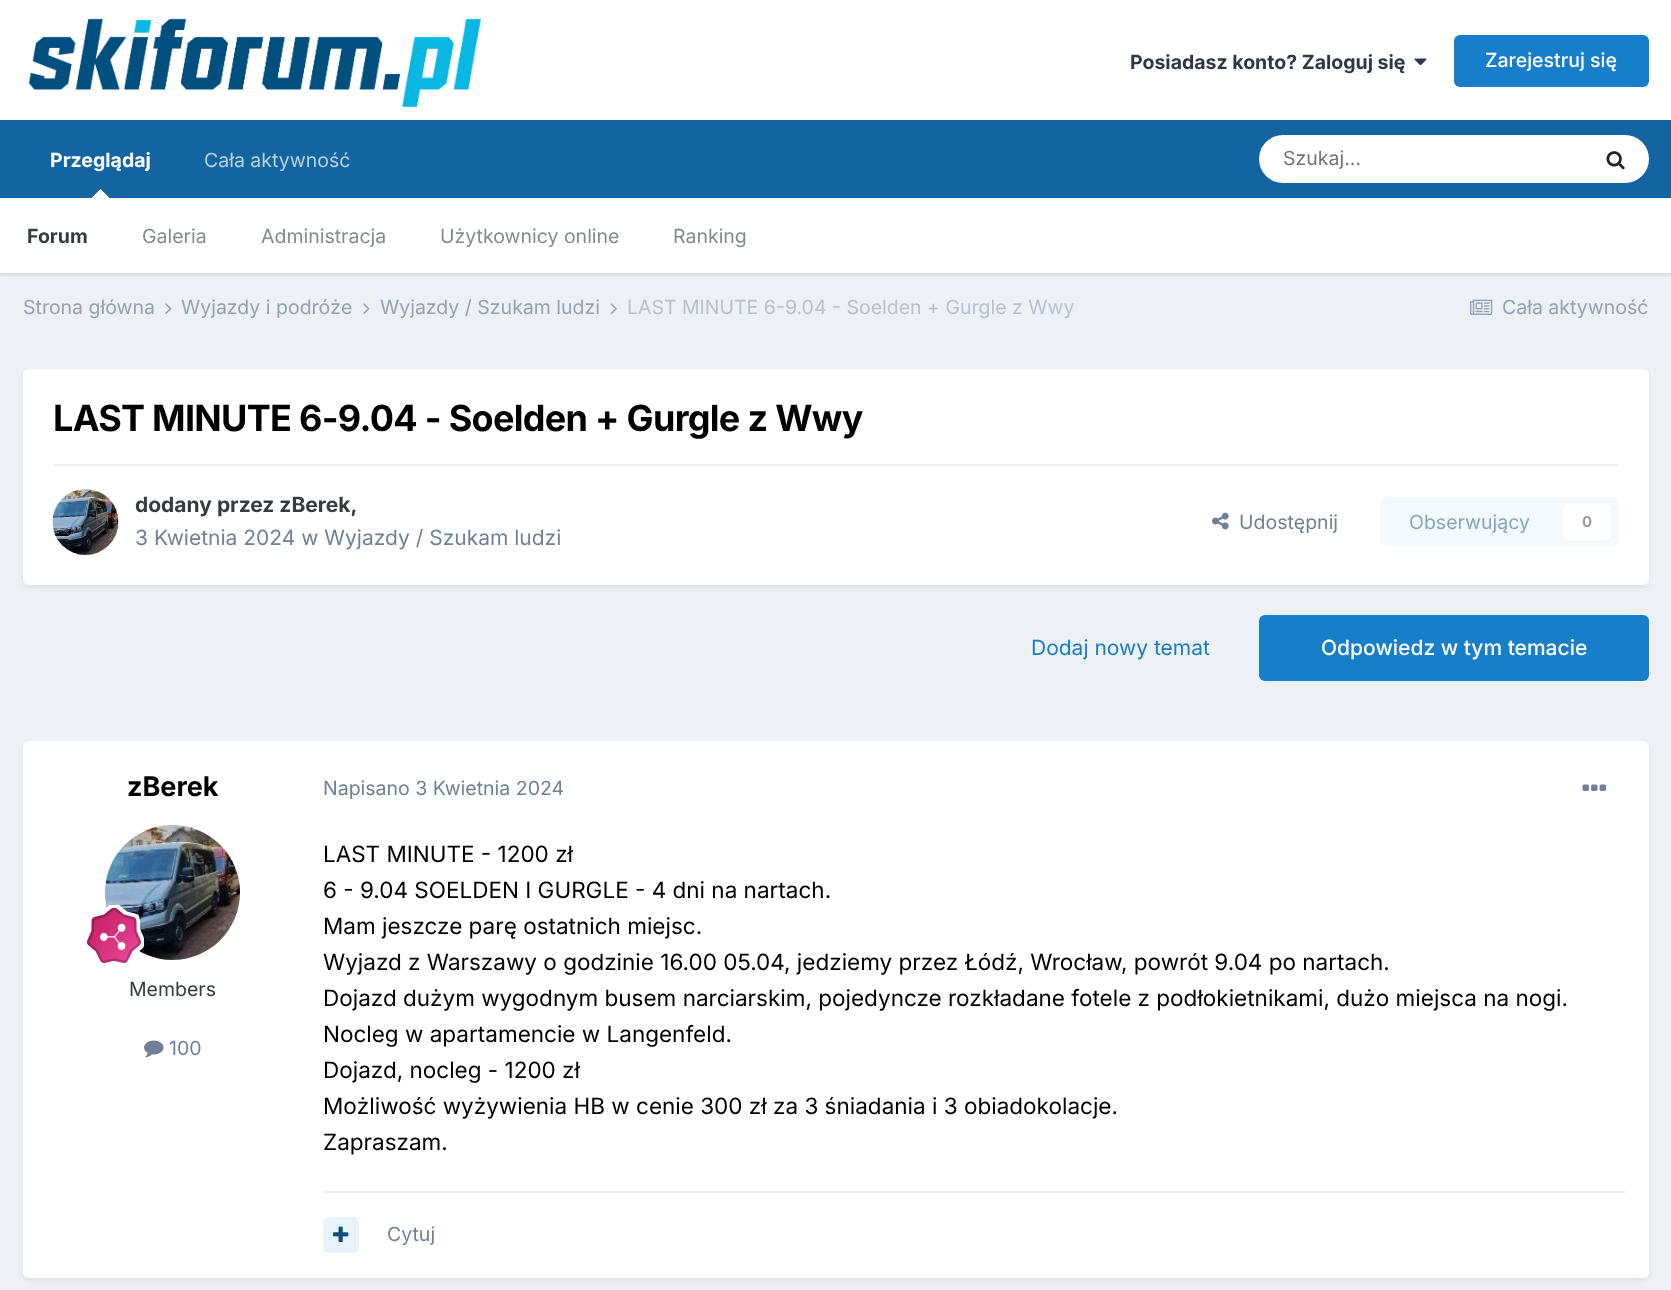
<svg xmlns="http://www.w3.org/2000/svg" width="1671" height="1290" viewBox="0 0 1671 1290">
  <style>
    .t1 { font: bold 19.5px Inter; fill: #2d3748; }
    .t2 { font: 500 19.5px Inter; fill: #fff; }
    .t3 { font: bold 19.5px Inter; fill: #fff; }
    .t4 { font: bold 19.5px Inter; fill: #353c41; }
    .t5 { font: 19.5px Inter; fill: #868a8d; }
    .t6 { font: 19.5px Inter; fill: #b8d1e3; }
    .t7 { font: 19.5px Inter; fill: #757575; }
    .t8 { font: 19.5px Inter; fill: #96a2b2; }
    .t9 { font: 19.5px Inter; fill: #b9c1cd; }
    .t10 { font: bold 36px Inter; letter-spacing: -0.7px; fill: #000; }
    .t11 { font: bold 21px Inter; fill: #353c41; }
    .t12 { font: 21px Inter; fill: #718096; }
    .t13 { font: 19.5px Inter; fill: #718096; }
    .t14 { font: 19.5px Inter; fill: #87a6bc; }
    .t15 { font: bold 15px Inter; fill: #9a9ea0; }
    .t16 { font: 21px Inter; fill: #177ec9; }
    .t17 { font: 500 21px Inter; fill: #fff; }
    .t18 { font: bold 27px Inter; fill: #000; }
    .t19 { font: 19.5px Inter; fill: #353c41; }
    .t20 { font: 22.5px Inter; fill: #000; }
  </style>
  <rect width="100%" height="100%" fill="#edf0f4"/>
  <rect x="0" y="0" width="1671" height="120" fill="#fff"/>
  <image x="28" y="18" width="453" height="90" href="images/1.png"/>
  <text x="1130" y="69" class="t1">Posiadasz konto? Zaloguj się</text>
  <image x="1414" y="58" width="13" height="8" href="images/2.png"/>
  <rect x="1454" y="35" width="195" height="52" rx="6" fill="#177ec9"/>
  <text x="1485" y="67" class="t2">Zarejestruj się</text>
  <rect x="0" y="120" width="1671" height="78" fill="#1265a1"/>
  <text x="50" y="167" class="t3">Przeglądaj</text>
  <rect x="0" y="200" width="1671" height="75" fill="#0000001a" filter="blur(1.5px)"/>
  <path d="M109.5 198H91.5L100.5 189Z" fill="#fff"/>
  <rect x="0" y="198" width="1671" height="75" fill="#fff"/>
  <text x="27" y="243" class="t4">Forum</text>
  <text x="142" y="243" class="t5">Galeria</text>
  <text x="261" y="243" class="t5">Administracja</text>
  <text x="440" y="243" class="t5">Użytkownicy online</text>
  <text x="673" y="243" class="t5">Ranking</text>
  <text x="204" y="167" class="t6">Cała aktywność</text>
  <rect x="1259" y="135" width="390" height="48" rx="24" fill="#fff"/>
  <text x="1283" y="165" class="t7">Szukaj...</text>
  <image x="1606" y="151" width="19" height="19" href="images/3.png"/>
  <text x="23" y="314" class="t8">Strona główna</text>
  <image x="165" y="303" width="7" height="11" href="images/4.png"/>
  <text x="181" y="314" class="t8">Wyjazdy i podróże</text>
  <image x="363" y="303" width="7" height="11" href="images/4.png"/>
  <text x="380" y="314" class="t8">Wyjazdy / Szukam ludzi</text>
  <image x="610" y="303" width="7" height="12" href="images/5.png"/>
  <text x="627" y="314" class="t9">LAST MINUTE 6-9.04 - Soelden + Gurgle z Wwy</text>
  <image x="1470" y="299" width="23" height="16" href="images/6.png"/>
  <text x="1502" y="314" class="t8">Cała aktywność</text>
  <rect x="24" y="374" width="1623" height="213" rx="5" fill="#2d37481a" filter="blur(3px)"/>
  <rect x="23" y="369" width="1626" height="216" rx="6" fill="#fff"/>
  <text x="53" y="431" class="t10">LAST MINUTE 6-9.04 - Soelden + Gurgle z Wwy</text>
  <rect x="53" y="464" width="1566" height="2" fill="#efeff0"/>
  <image x="52" y="489" width="67" height="66" href="images/7.png"/>
  <text x="135" y="512" class="t11">dodany przez zBerek,</text>
  <text x="135" y="545" class="t12">3 Kwietnia 2024 w Wyjazdy / Szukam ludzi</text>
  <image x="1212" y="512" width="17" height="18" href="images/8.png"/>
  <text x="1239" y="529" class="t13">Udostępnij</text>
  <rect x="1380" y="497" width="239" height="49" rx="6" fill="#f4f9fd"/>
  <text x="1409" y="529" class="t14">Obserwujący</text>
  <rect x="1563" y="504" width="48" height="36" rx="6" fill="#fff"/>
  <text x="1582" y="527" class="t15">0</text>
  <text x="1031" y="655" class="t16">Dodaj nowy temat</text>
  <rect x="1259" y="615" width="390" height="66" rx="6" fill="#177ec9"/>
  <text x="1321" y="655" class="t17">Odpowiedz w tym temacie</text>
  <rect x="24" y="746" width="1623" height="534" rx="5" fill="#2d37481a" filter="blur(3px)"/>
  <rect x="23" y="741" width="1626" height="537" rx="6" fill="#fff"/>
  <text x="127" y="796" class="t18">zBerek</text>
  <image x="105" y="825" width="135" height="135" href="images/9.png"/>
  <image x="87" y="905" width="57" height="58" href="images/10.png"/>
  <text x="129" y="996" class="t19">Members</text>
  <image x="144" y="1040" width="20" height="18" href="images/11.png"/>
  <text x="169" y="1055" class="t13">100</text>
  <text x="323" y="795" class="t13">Napisano 3 Kwietnia 2024</text>
  <image x="1582" y="784" width="25" height="7" href="images/12.png"/>
  <text x="323" y="862" class="t20">LAST MINUTE - 1200 zł</text>
  <text x="323" y="898" class="t20">6 - 9.04 SOELDEN I GURGLE - 4 dni na nartach.</text>
  <text x="323" y="934" class="t20">Mam jeszcze parę ostatnich miejsc.</text>
  <text x="323" y="970" class="t20">Wyjazd z Warszawy o godzinie 16.00 05.04, jedziemy przez Łódź, Wrocław, powrót 9.04 po nartach.</text>
  <text x="323" y="1006" class="t20">Dojazd dużym wygodnym busem narciarskim, pojedyncze rozkładane fotele z podłokietnikami, dużo miejsca na nogi.</text>
  <text x="323" y="1042" class="t20">Nocleg w apartamencie w Langenfeld.</text>
  <text x="323" y="1078" class="t20">Dojazd, nocleg - 1200 zł</text>
  <text x="323" y="1114" class="t20">Możliwość wyżywienia HB w cenie 300 zł za 3 śniadania i 3 obiadokolacje.</text>
  <text x="323" y="1150" class="t20">Zapraszam.</text>
  <rect x="323" y="1191" width="1302" height="2" fill="#ebecec"/>
  <rect x="323" y="1217" width="36" height="36" rx="6" fill="#e8f2fa"/>
  <image x="333" y="1226" width="16" height="16" href="images/13.png"/>
  <text x="387" y="1241" class="t13">Cytuj</text>
</svg>
